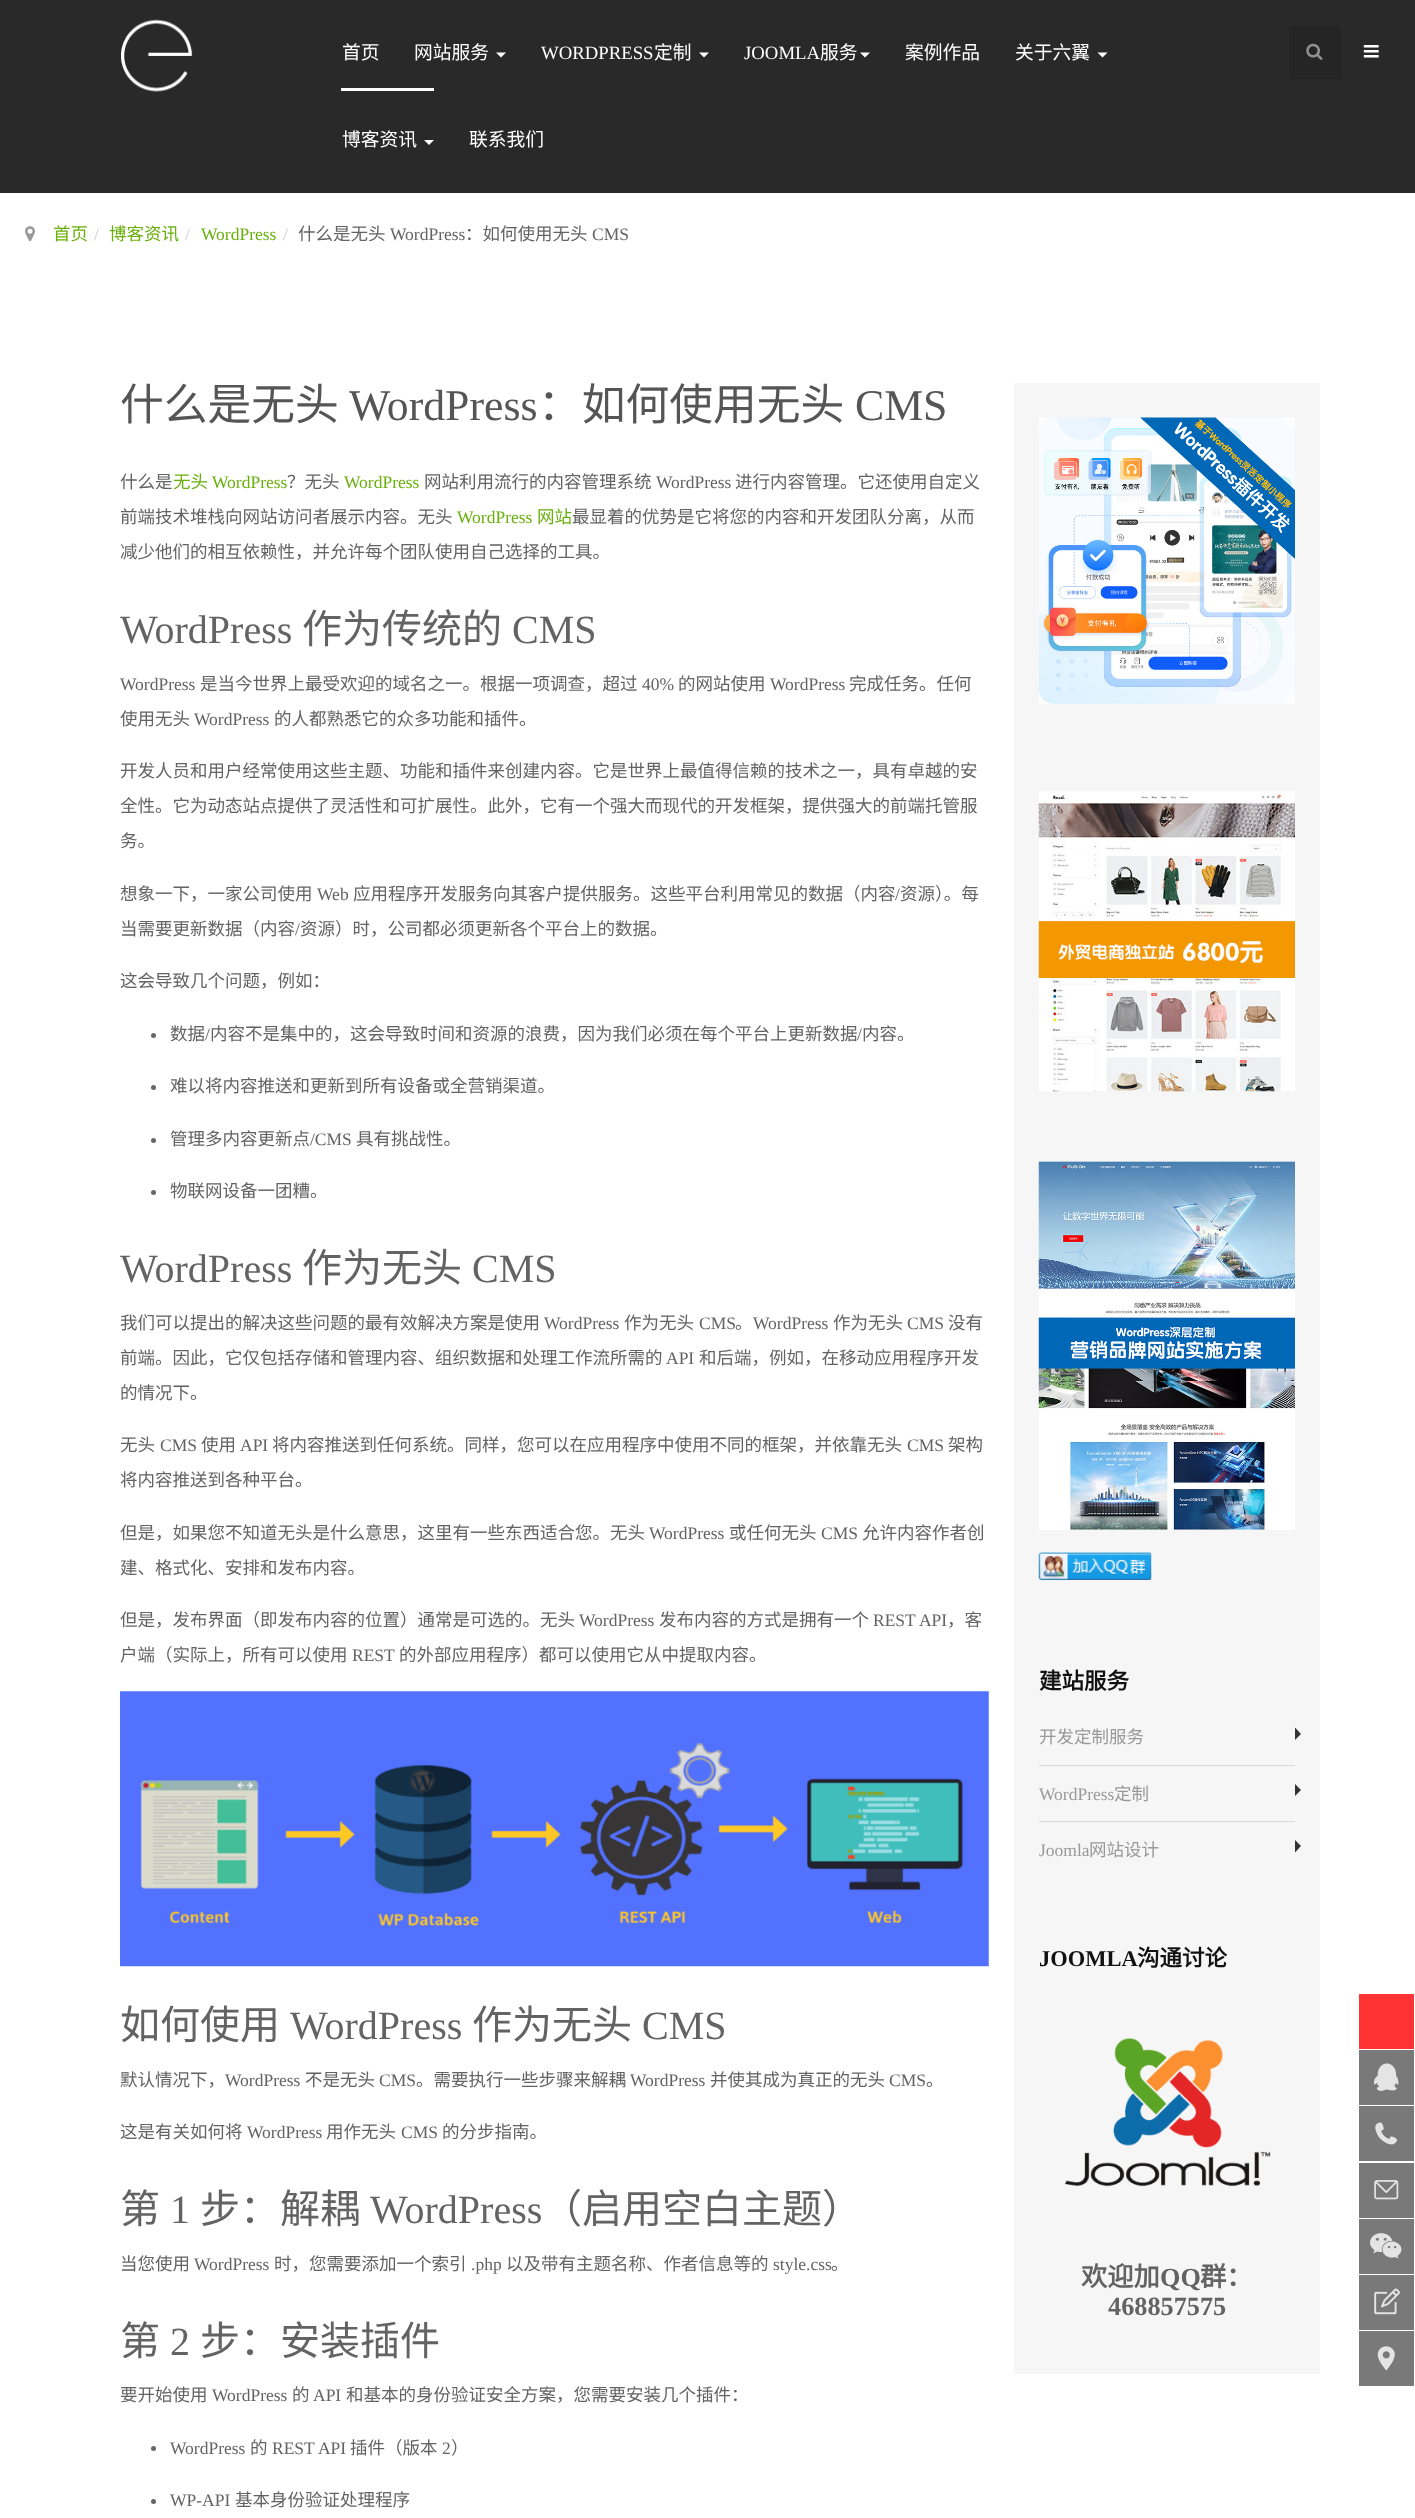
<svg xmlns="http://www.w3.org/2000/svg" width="1415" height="2518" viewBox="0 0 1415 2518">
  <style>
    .t1 { font: 18.75px Noto Sans CJK SC; fill: #fff; }
    .t2 { font: 18.75px Liberation Serif; fill: #fff; }
    .t3 { font: 17.5px Noto Sans CJK SC; fill: #69b00c; }
    .t4 { font: 17.5px Liberation Serif; fill: #ccc; }
    .t5 { font: 17.5px Liberation Serif; fill: #69b00c; }
    .t6 { font: 17.5px Noto Sans CJK SC; fill: #636363; }
    .t7 { font: 17.5px Liberation Serif; fill: #636363; }
    .t8 { font: 43.75px Noto Sans CJK SC; fill: #555; }
    .t9 { font: 43.75px Liberation Serif; fill: #555; }
    .t10 { font: 40px Liberation Serif; fill: #636363; }
    .t11 { font: 40px Noto Sans CJK SC; fill: #636363; }
    .t12 { font: bold 22.5px Noto Sans CJK SC; fill: #111; }
    .t13 { font: 17.5px Noto Sans CJK SC; fill: #999; }
    .t14 { font: 17.5px Liberation Serif; fill: #999; }
    .t15 { font: bold 22.5px Liberation Serif; fill: #111; }
    .t16 { font: bold 26.25px Noto Sans CJK SC; fill: #636363; }
    .t17 { font: bold 26.25px Liberation Serif; fill: #636363; }
  </style>
  <rect width="100%" height="100%" fill="#fff"/>
  <rect x="0" y="0" width="1415" height="193" fill="#292929"/>
  <image x="121" y="19" width="72" height="73" href="images/1.png"/>
  <text x="342" y="59" class="t1">首页</text>
  <text x="414" y="59" class="t1">网站服务</text>
  <path d="M496 52.5H506L501 57.5Z" fill="#fff"/>
  <text x="541" y="59" class="t2">WORDPRESS</text>
  <text x="654" y="59" class="t1">定制</text>
  <path d="M699 52.5H709L704 57.5Z" fill="#fff"/>
  <text x="744" y="59" class="t2">JOOMLA</text>
  <text x="820" y="59" class="t1">服务</text>
  <path d="M860 52.5H870L865 57.5Z" fill="#fff"/>
  <text x="905" y="59" class="t1">案例作品</text>
  <text x="1015" y="59" class="t1">关于六翼</text>
  <path d="M1097.5 52.5H1107.5L1102.5 57.5Z" fill="#fff"/>
  <rect x="341" y="88" width="93" height="3" fill="#fff"/>
  <text x="342" y="146" class="t1">博客资讯</text>
  <path d="M424 140H434L429 145Z" fill="#fff"/>
  <text x="469" y="146" class="t1">联系我们</text>
  <rect x="1289" y="26" width="52" height="53" fill="#252525"/>
  <image x="1306" y="43" width="17" height="17" href="images/2.png"/>
  <image x="1363" y="45" width="16" height="13" href="images/3.png"/>
  <image x="25" y="226" width="10" height="16" href="images/4.png"/>
  <text x="53" y="240" class="t3">首页</text>
  <text x="94" y="240" class="t4">/</text>
  <text x="109" y="240" class="t3">博客资讯</text>
  <text x="185" y="240" class="t4">/</text>
  <text x="201" y="240" class="t5">WordPress</text>
  <text x="283" y="240" class="t4">/</text>
  <text x="298" y="240" class="t6">什么是无头</text>
  <text x="390" y="240" class="t7">WordPress</text>
  <text x="465" y="240" class="t6">：如何使用无头</text>
  <text x="592" y="240" class="t7">CMS</text>
  <text x="120" y="420" class="t8">什么是无头</text>
  <text x="349" y="420" class="t9">WordPress</text>
  <text x="538" y="420" class="t8">：如何使用无头</text>
  <text x="855" y="420" class="t9">CMS</text>
  <text x="120" y="488" class="t6">什么是</text>
  <text x="173" y="488" class="t3">无头</text>
  <text x="212" y="488" class="t5">WordPress</text>
  <text x="287" y="488" class="t6">？无头</text>
  <text x="344" y="488" class="t5">WordPress</text>
  <text x="424" y="488" class="t6">网站利用流行的内容管理系统</text>
  <text x="656" y="488" class="t7">WordPress</text>
  <text x="735" y="488" class="t6">进行内容管理。它还使用自定义</text>
  <text x="120" y="523" class="t6">前端技术堆栈向网站访问者展示内容。无头</text>
  <text x="457" y="523" class="t5">WordPress</text>
  <text x="537" y="523" class="t3">网站</text>
  <text x="572" y="523" class="t6">最显着的优势是它将您的内容和开发团队分离，从而</text>
  <text x="120" y="558" class="t6">减少他们的相互依赖性，并允许每个团队使用自己选择的工具。</text>
  <text x="120" y="643" class="t10">WordPress</text>
  <text x="302" y="643" class="t11">作为传统的</text>
  <text x="512" y="643" class="t10">CMS</text>
  <text x="120" y="690" class="t7">WordPress</text>
  <text x="200" y="690" class="t6">是当今世界上最受欢迎的域名之一。根据一项调查，超过</text>
  <text x="642" y="690" class="t7">40%</text>
  <text x="678" y="690" class="t6">的网站使用</text>
  <text x="770" y="690" class="t7">WordPress</text>
  <text x="849" y="690" class="t6">完成任务。任何</text>
  <text x="120" y="725" class="t6">使用无头</text>
  <text x="194" y="725" class="t7">WordPress</text>
  <text x="274" y="725" class="t6">的人都熟悉它的众多功能和插件。</text>
  <text x="120" y="777" class="t6">开发人员和用户经常使用这些主题、功能和插件来创建内容。它是世界上最值得信赖的技术之一，具有卓越的安</text>
  <text x="120" y="812" class="t6">全性。它为动态站点提供了灵活性和可扩展性。此外，它有一个强大而现代的开发框架，提供强大的前端托管服</text>
  <text x="120" y="847" class="t6">务。</text>
  <text x="120" y="900" class="t6">想象一下，一家公司使用</text>
  <text x="317" y="900" class="t7">Web</text>
  <text x="353" y="900" class="t6">应用程序开发服务向其客户提供服务。这些平台利用常见的数据（内容</text>
  <text x="895" y="900" class="t7">/</text>
  <text x="900" y="900" class="t6">资源）。每</text>
  <text x="120" y="935" class="t6">当需要更新数据（内容</text>
  <text x="295" y="935" class="t7">/</text>
  <text x="300" y="935" class="t6">资源）时，公司都必须更新各个平台上的数据。</text>
  <text x="120" y="987" class="t6">这会导致几个问题，例如：</text>
  <circle cx="153.5" cy="1035.5" r="2.5" fill="#666"/>
  <text x="170" y="1040" class="t6">数据</text>
  <text x="205" y="1040" class="t7">/</text>
  <text x="210" y="1040" class="t6">内容不是集中的，这会导致时间和资源的浪费，因为我们必须在每个平台上更新数据</text>
  <text x="857" y="1040" class="t7">/</text>
  <text x="862" y="1040" class="t6">内容。</text>
  <circle cx="153.5" cy="1087.5" r="2.5" fill="#666"/>
  <text x="170" y="1092" class="t6">难以将内容推送和更新到所有设备或全营销渠道。</text>
  <circle cx="153.5" cy="1140.5" r="2.5" fill="#666"/>
  <text x="170" y="1145" class="t6">管理多内容更新点</text>
  <text x="310" y="1145" class="t7">/CMS</text>
  <text x="356" y="1145" class="t6">具有挑战性。</text>
  <circle cx="153.5" cy="1192.5" r="2.5" fill="#666"/>
  <text x="170" y="1197" class="t6">物联网设备一团糟。</text>
  <text x="120" y="1282" class="t10">WordPress</text>
  <text x="302" y="1282" class="t11">作为无头</text>
  <text x="472" y="1282" class="t10">CMS</text>
  <text x="120" y="1329" class="t6">我们可以提出的解决这些问题的最有效解决方案是使用</text>
  <text x="544" y="1329" class="t7">WordPress</text>
  <text x="624" y="1329" class="t6">作为</text>
  <text x="659" y="1329" class="t6">无头</text>
  <text x="699" y="1329" class="t7">CMS</text>
  <text x="735" y="1329" class="t6">。</text>
  <text x="753" y="1329" class="t7">WordPress</text>
  <text x="833" y="1329" class="t6">作为无头</text>
  <text x="907" y="1329" class="t7">CMS</text>
  <text x="948" y="1329" class="t6">没有</text>
  <text x="120" y="1364" class="t6">前端。因此，它仅包括存储和管理内容、组织数据和处理工作流所需的</text>
  <text x="666" y="1364" class="t7">API</text>
  <text x="699" y="1364" class="t6">和后端，例如，在移动应用程序开发</text>
  <text x="120" y="1399" class="t6">的情况下。</text>
  <text x="120" y="1451" class="t6">无头</text>
  <text x="160" y="1451" class="t7">CMS</text>
  <text x="201" y="1451" class="t6">使用</text>
  <text x="240" y="1451" class="t7">API</text>
  <text x="272" y="1451" class="t6">将内容推送到任何系统。同样，您可以在应用程序中使用不同的框架，并依靠无头</text>
  <text x="907" y="1451" class="t7">CMS</text>
  <text x="948" y="1451" class="t6">架构</text>
  <text x="120" y="1486" class="t6">将内容推送到各种平台。</text>
  <text x="120" y="1539" class="t6">但是，如果您不知道无头是什么意思，这里有一些东西适合您。无头</text>
  <text x="649" y="1539" class="t7">WordPress</text>
  <text x="729" y="1539" class="t6">或任何无头</text>
  <text x="821" y="1539" class="t7">CMS</text>
  <text x="862" y="1539" class="t6">允许内容作者创</text>
  <text x="120" y="1574" class="t6">建、格式化、安排和发布内容。</text>
  <text x="120" y="1626" class="t6">但是，发布界面（即发布内容的位置）通常是可选的。无头</text>
  <text x="579" y="1626" class="t7">WordPress</text>
  <text x="659" y="1626" class="t6">发布内容的方式是拥有一个</text>
  <text x="873" y="1626" class="t7">REST API</text>
  <text x="947" y="1626" class="t6">，客</text>
  <text x="120" y="1661" class="t6">户端（实际上，所有可以使用</text>
  <text x="352" y="1661" class="t7">REST</text>
  <text x="399" y="1661" class="t6">的外部应用程序）都可以使用它从中提取内容。</text>
  <image x="120" y="1691" width="869" height="276" href="images/5.png"/>
  <text x="120" y="2039" class="t11">如何使用</text>
  <text x="290" y="2039" class="t10">WordPress</text>
  <text x="472" y="2039" class="t11">作为无头</text>
  <text x="642" y="2039" class="t10">CMS</text>
  <text x="120" y="2086" class="t6">默认情况下，</text>
  <text x="225" y="2086" class="t7">WordPress</text>
  <text x="305" y="2086" class="t6">不是无头</text>
  <text x="379" y="2086" class="t7">CMS</text>
  <text x="416" y="2086" class="t6">。需要执行一些步骤来解耦</text>
  <text x="630" y="2086" class="t7">WordPress</text>
  <text x="710" y="2086" class="t6">并使其成为真正的无头</text>
  <text x="889" y="2086" class="t7">CMS</text>
  <text x="926" y="2086" class="t6">。</text>
  <text x="120" y="2138" class="t6">这是有关如何将</text>
  <text x="247" y="2138" class="t7">WordPress</text>
  <text x="326" y="2138" class="t6">用作无头</text>
  <text x="401" y="2138" class="t7">CMS</text>
  <text x="442" y="2138" class="t6">的分步指南。</text>
  <text x="120" y="2223" class="t11">第</text>
  <text x="170" y="2223" class="t10">1</text>
  <text x="200" y="2223" class="t11">步：解耦</text>
  <text x="370" y="2223" class="t10">WordPress</text>
  <text x="542" y="2223" class="t11">（启用空白主题）</text>
  <text x="120" y="2270" class="t6">当您使用</text>
  <text x="194" y="2270" class="t7">WordPress</text>
  <text x="274" y="2270" class="t6">时，您需要添加一个索引</text>
  <text x="471" y="2270" class="t7">.php</text>
  <text x="506" y="2270" class="t6">以及带有主题名称、作者信息等的</text>
  <text x="773" y="2270" class="t7">style.css</text>
  <text x="831" y="2270" class="t6">。</text>
  <text x="120" y="2355" class="t11">第</text>
  <text x="170" y="2355" class="t10">2</text>
  <text x="200" y="2355" class="t11">步：安装插件</text>
  <text x="120" y="2401" class="t6">要开始使用</text>
  <text x="212" y="2401" class="t7">WordPress</text>
  <text x="292" y="2401" class="t6">的</text>
  <text x="313" y="2401" class="t7">API</text>
  <text x="346" y="2401" class="t6">和基本的身份验证安全方案，您需要安装几个插件：</text>
  <circle cx="153.5" cy="2448.5" r="2.5" fill="#666"/>
  <text x="170" y="2454" class="t7">WordPress</text>
  <text x="250" y="2454" class="t6">的</text>
  <text x="272" y="2454" class="t7">REST API</text>
  <text x="350" y="2454" class="t6">插件（版本</text>
  <text x="442" y="2454" class="t7">2</text>
  <text x="451" y="2454" class="t6">）</text>
  <circle cx="153.5" cy="2501.5" r="2.5" fill="#666"/>
  <text x="170" y="2506" class="t7">WP-API</text>
  <text x="235" y="2506" class="t6">基本身份验证处理程序</text>
  <rect x="1014" y="383" width="306" height="1991" fill="#f6f6f6"/>
  <image x="1038" y="417" width="257" height="287" href="images/6.png"/>
  <image x="1038" y="791" width="257" height="301" href="images/7.png"/>
  <image x="1038" y="1161" width="257" height="369" href="images/8.png"/>
  <image x="1038" y="1552" width="114" height="28" href="images/9.png"/>
  <text x="1039" y="1689" class="t12">建站服务</text>
  <rect x="1039" y="1765" width="256" height="1" fill="#d9d9d9"/>
  <text x="1039" y="1743" class="t13">开发定制服务</text>
  <path d="M1295 1740V1727.5L1301 1734Z" fill="#333"/>
  <rect x="1039" y="1821" width="256" height="1" fill="#d9d9d9"/>
  <text x="1039" y="1800" class="t14">WordPress</text>
  <text x="1114" y="1800" class="t13">定制</text>
  <path d="M1295 1796V1784L1301 1790Z" fill="#333"/>
  <text x="1039" y="1856" class="t14">Joomla</text>
  <text x="1089" y="1856" class="t13">网站设计</text>
  <path d="M1295 1852.5V1840L1301 1846Z" fill="#333"/>
  <text x="1039" y="1966" class="t15">JOOMLA</text>
  <text x="1137" y="1966" class="t12">沟通讨论</text>
  <image x="1065" y="2038" width="206" height="149" href="images/10.png"/>
  <text x="1081" y="2286" class="t16">欢迎加</text>
  <text x="1160" y="2286" class="t17">QQ</text>
  <text x="1200" y="2286" class="t16">群：</text>
  <text x="1108" y="2315" class="t17">468857575</text>
  <rect x="1359" y="1994" width="55" height="55" fill="#f33"/>
  <rect x="1359" y="2050" width="55" height="55" fill="#797979"/>
  <image x="1374" y="2063" width="25" height="28" href="images/11.png"/>
  <rect x="1359" y="2106" width="55" height="55" fill="#797979"/>
  <image x="1375" y="2122" width="23" height="23" href="images/12.png"/>
  <rect x="1359" y="2163" width="55" height="55" fill="#797979"/>
  <image x="1374" y="2180" width="25" height="20" href="images/13.png"/>
  <rect x="1359" y="2219" width="55" height="55" fill="#797979"/>
  <image x="1370" y="2233" width="32" height="26" href="images/14.png"/>
  <rect x="1359" y="2275" width="55" height="55" fill="#797979"/>
  <image x="1374" y="2288" width="26" height="27" href="images/15.png"/>
  <rect x="1359" y="2331" width="55" height="55" fill="#797979"/>
  <image x="1377" y="2346" width="18" height="25" href="images/16.png"/>
</svg>
